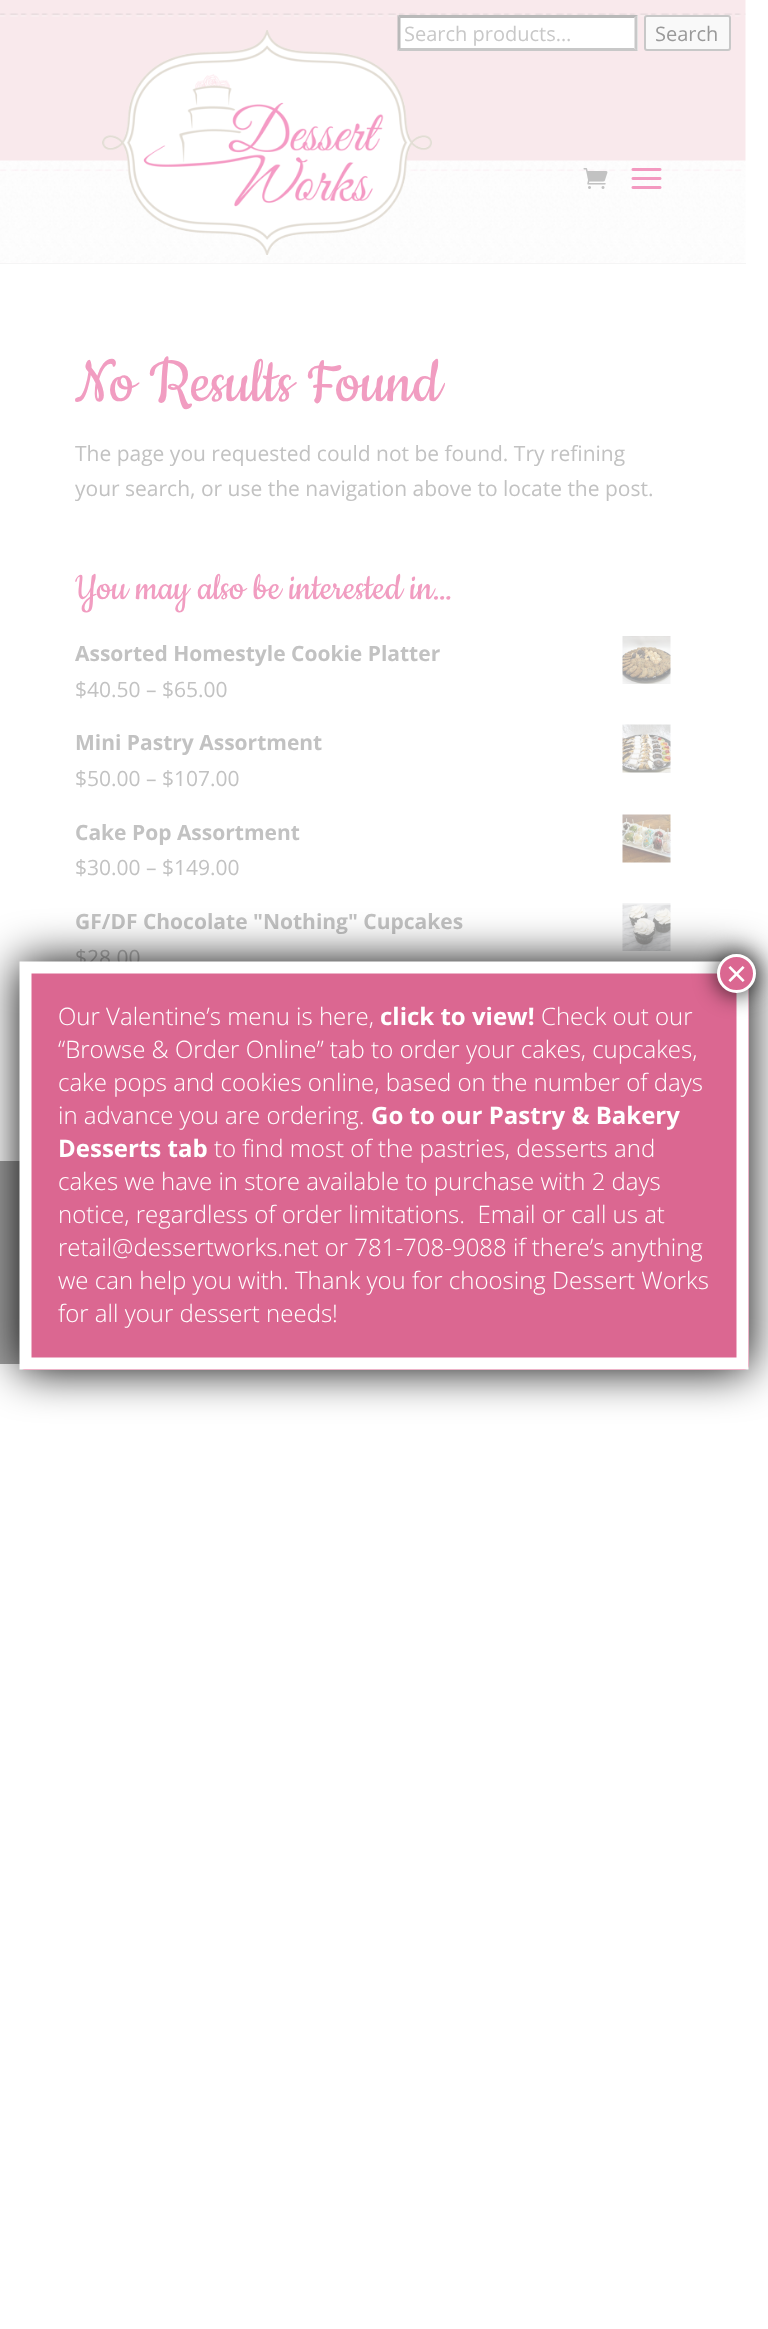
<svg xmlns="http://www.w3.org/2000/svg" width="768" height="2329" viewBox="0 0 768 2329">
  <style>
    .t1 { font: 20px Open Sans; fill: #c8c8c8; }
    .t2 { font: 20px Open Sans; fill: #999; }
    .t3 { font: 70.5px Cookie; fill: #f19dc1; }
    .t4 { font: 21px Open Sans; fill: #c2c2c2; }
    .t5 { font: 42px Cookie; fill: #f19dc1; }
    .t6 { font: bold 21px Open Sans; fill: #c2c2c2; }
    .t7 { font: 36px Liberation Sans; fill: #fff; }
    .t8 { font: 300 24px Open Sans; fill: #fff; }
    .t9 { font: bold 24px Open Sans; fill: #fff; }
  </style>
  <rect width="100%" height="100%" fill="#fff"/>
  <path d="M0 262V264H746V2V262Z" fill="#f5f5f5"/>
  <rect x="0" y="262" width="746" height="1" fill="#fff"/>
  <image x="0" y="0" width="746" height="263" href="images/1.png"/>
  <rect x="398" y="15" width="240" height="36" fill="#fff"/>
  <path d="M398 15H638L634 18H400Z" fill="#b9b9b9"/>
  <path d="M637.5 15V51L634.5 48V18Z" fill="#c8c8c8"/>
  <path d="M638 51H398L400 48H634Z" fill="#c8c8c8"/>
  <path d="M397.5 51V15L400.5 18V48Z" fill="#b9b9b9"/>
  <text x="404" y="41" class="t1">Search products…</text>
  <rect x="645" y="16" width="85" height="34" rx="2" fill="#f9f9f9" stroke="#c8c8c8" stroke-width="2"/>
  <text x="655" y="41" class="t2">Search</text>
  <image x="102" y="30" width="330" height="225" href="images/2.png"/>
  <image x="583" y="168" width="25" height="21" href="images/3.png"/>
  <image x="631" y="168" width="31" height="21" href="images/4.png"/>
  <text x="75" y="401" class="t3">No Results Found</text>
  <text x="75" y="461" class="t4">The page you requested could not be found. Try refining</text>
  <text x="75" y="496" class="t4">your search, or use the navigation above to locate the post.</text>
  <text x="75" y="599" class="t5">You may also be interested in…</text>
  <text x="75" y="661" class="t6">Assorted Homestyle Cookie Platter</text>
  <image x="622" y="636" width="49" height="48" href="images/5.png"/>
  <text x="75" y="697" class="t4">$40.50 – $65.00</text>
  <text x="75" y="750" class="t6">Mini Pastry Assortment</text>
  <image x="622" y="724" width="49" height="49" href="images/6.png"/>
  <text x="75" y="786" class="t4">$50.00 – $107.00</text>
  <text x="75" y="840" class="t6">Cake Pop Assortment</text>
  <image x="622" y="814" width="49" height="49" href="images/7.png"/>
  <text x="75" y="875" class="t4">$30.00 – $149.00</text>
  <text x="75" y="929" class="t6">GF/DF Chocolate "Nothing" Cupcakes</text>
  <image x="622" y="903" width="49" height="48" href="images/8.png"/>
  <text x="75" y="965" class="t4">$28.00</text>
  <rect x="0" y="1161" width="20" height="203" fill="#a2a2a2"/>
  <rect x="20" y="962" width="729" height="408" rx="5" fill="#020202" filter="blur(22.5px)"/>
  <rect x="20" y="962" width="729" height="408" rx="5" fill="#db6791"/>
  <path d="M25.5 967.5H742.5V1363.5H25.5Z" fill="none" stroke="#fff" stroke-width="12"/>
  <rect x="716" y="953" width="42" height="42" rx="21" fill="#020202bf" filter="blur(11px)"/>
  <circle cx="736.5" cy="973.5" r="18" fill="#db6791" stroke="#fff" stroke-width="3"/>
  <text x="726" y="986" class="t7">×</text>
  <text x="58" y="1025" class="t8">Our Valentine’s menu is here,</text>
  <text x="380" y="1025" class="t9">click to view!</text>
  <text x="541" y="1025" class="t8">Check out our</text>
  <text x="58" y="1058" class="t8">“Browse &amp; Order Online” tab to order your cakes, cupcakes,</text>
  <text x="58" y="1091" class="t8">cake pops and cookies online, based on the number of days</text>
  <text x="58" y="1124" class="t8">in advance you are ordering.</text>
  <text x="371" y="1124" class="t9">Go to our Pastry &amp; Bakery</text>
  <text x="58" y="1157" class="t9">Desserts tab</text>
  <text x="214" y="1157" class="t8">to find most of the pastries, desserts and</text>
  <text x="58" y="1190" class="t8">cakes we have in store available to purchase with 2 days</text>
  <text x="58" y="1223" class="t8" xml:space="preserve">notice, regardless of order limitations.  Email or call us at</text>
  <text x="58" y="1256" class="t8">retail@dessertworks.net or 781-708-9088 if there’s anything</text>
  <text x="58" y="1289" class="t8">we can help you with. Thank you for choosing Dessert Works</text>
  <text x="58" y="1322" class="t8">for all your dessert needs!</text>
</svg>
